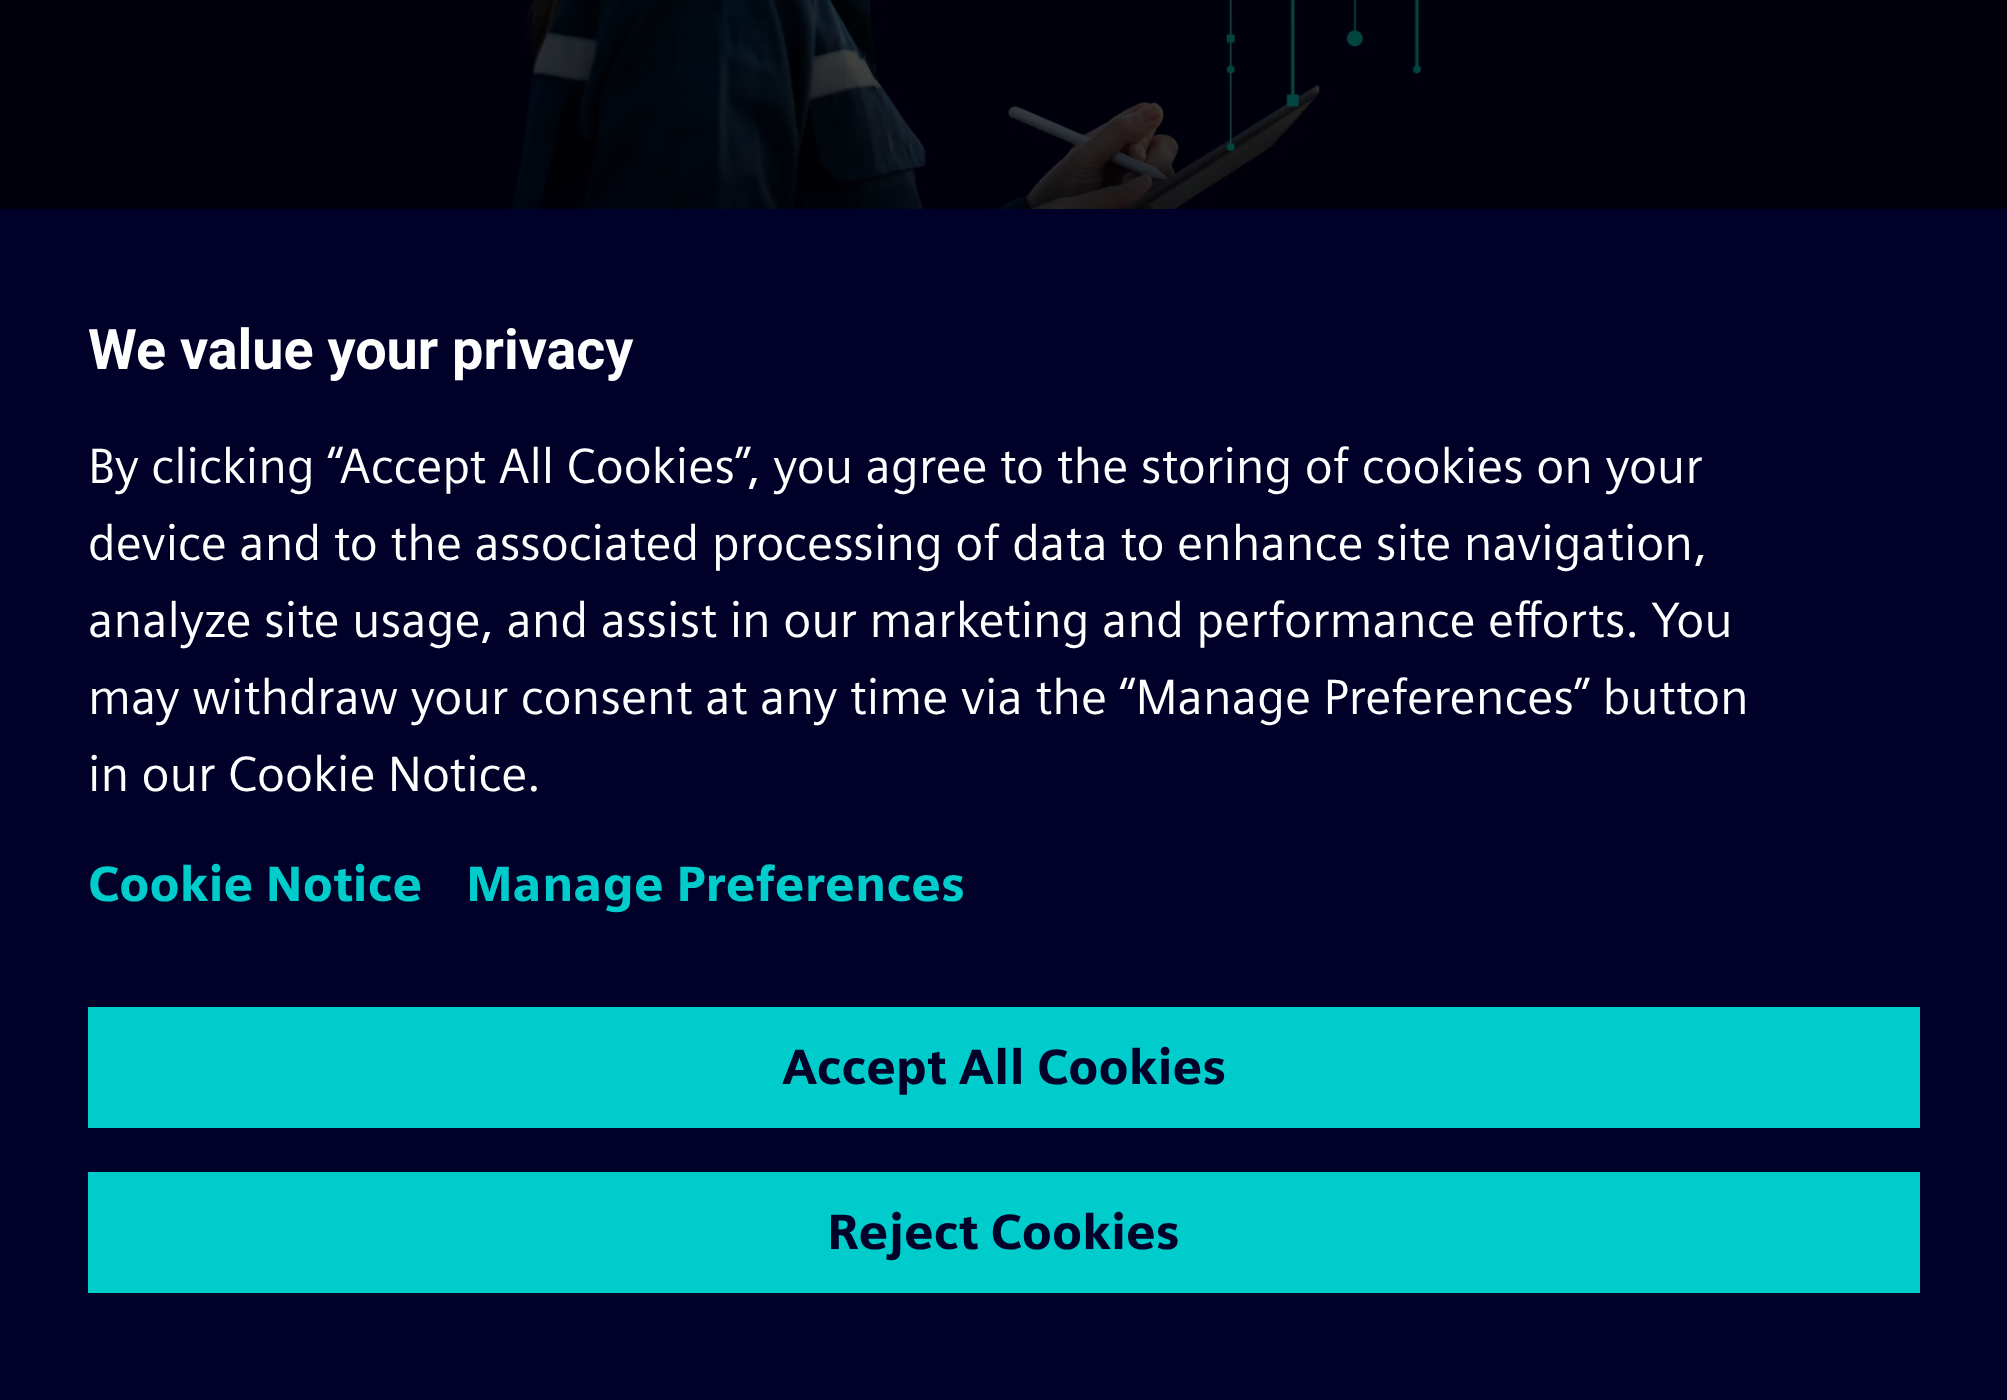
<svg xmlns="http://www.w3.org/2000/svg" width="2007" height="1400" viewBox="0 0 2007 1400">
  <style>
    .t1 { font: bold 55.75px Roboto; fill: #fff; }
    .t2 { font: 49.5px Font; fill: #fff; }
    .t3 { font: bold 49.5px Font; fill: #0cc; }
    .t4 { font: bold 49.5px Font; fill: #000028; }
  </style>
  <rect width="100%" height="100%" fill="#00000c"/>
  <image x="501" y="0" width="921" height="209" href="images/1.png"/>
  <rect x="0" y="209" width="2007" height="1191" fill="#000028"/>
  <text x="88" y="369" class="t1">We value your privacy</text>
  <text x="88" y="483" class="t2">By clicking “Accept All Cookies”, you agree to the storing of cookies on your</text>
  <text x="88" y="560" class="t2">device and to the associated processing of data to enhance site navigation,</text>
  <text x="88" y="637" class="t2">analyze site usage, and assist in our marketing and performance efforts. You</text>
  <text x="88" y="714" class="t2">may withdraw your consent at any time via the “Manage Preferences” button</text>
  <text x="88" y="791" class="t2">in our Cookie Notice.</text>
  <text x="88" y="901" class="t3">Cookie Notice</text>
  <text x="466" y="901" class="t3">Manage Preferences</text>
  <rect x="88" y="1007" width="1832" height="121" fill="#0cc"/>
  <text x="782" y="1084" class="t4">Accept All Cookies</text>
  <rect x="88" y="1172" width="1832" height="121" fill="#0cc"/>
  <text x="827" y="1249" class="t4">Reject Cookies</text>
</svg>
